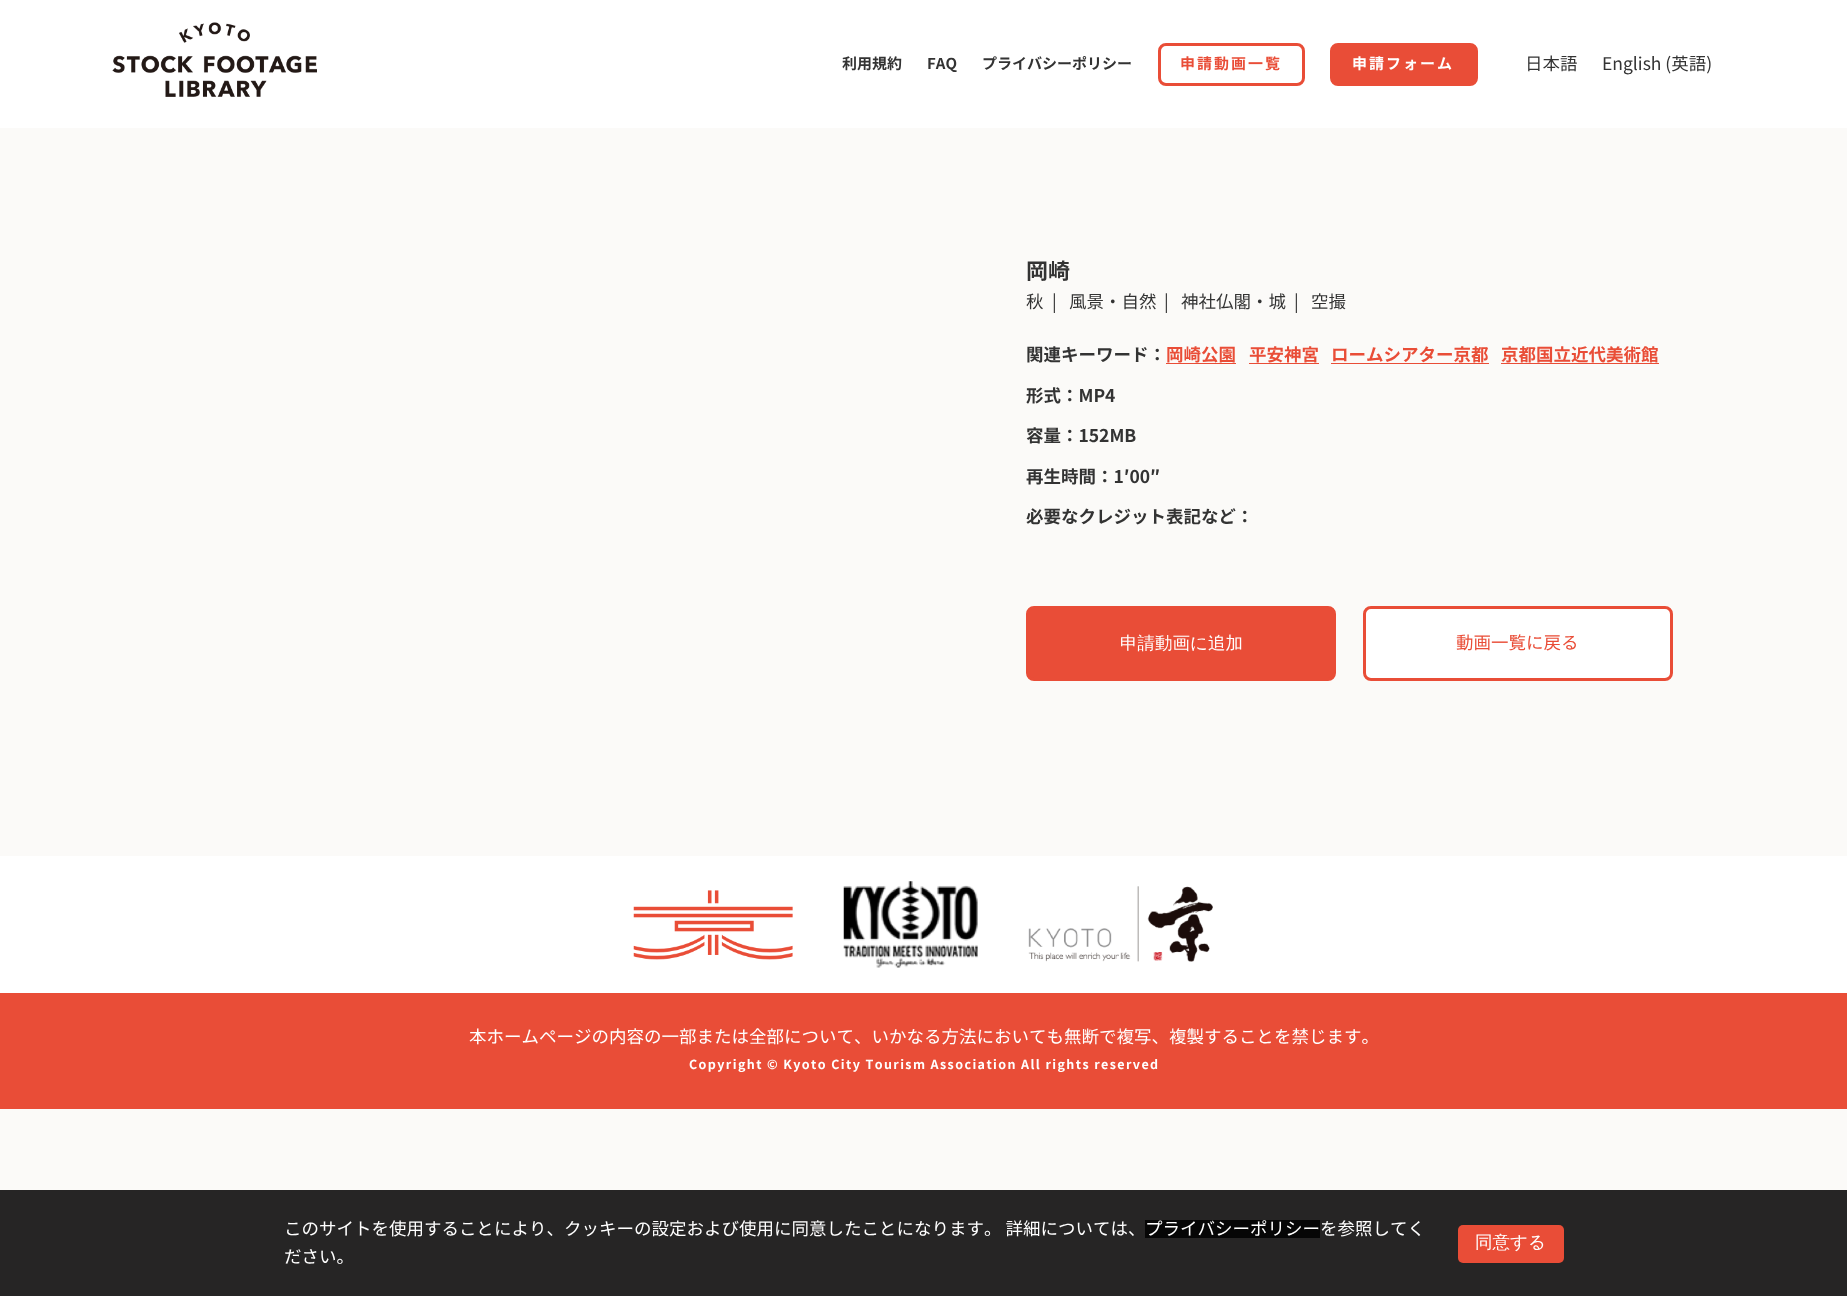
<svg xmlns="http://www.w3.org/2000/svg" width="1847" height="1296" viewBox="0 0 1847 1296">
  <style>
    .t1 { font: bold 15px Noto Sans CJK JP; fill: #333; }
    .t2 { font: bold 15px Noto Sans CJK JP; letter-spacing: 2px; fill: #e94d37; }
    .t3 { font: bold 15px Noto Sans CJK JP; letter-spacing: 2px; fill: #fff; }
    .t4 { font: 17.5px Noto Sans CJK JP; fill: #333; }
    .t5 { font: bold 22px Noto Sans CJK JP; fill: #333; }
    .t6 { font: bold 17.5px Noto Sans CJK JP; fill: #333; }
    .t7 { font: bold 17.5px Noto Sans CJK JP; fill: #e94d37; }
    .t8 { font: 500 17.5px WenQuanYi Zen Hei; fill: #fff; }
    .t9 { font: 17.5px Noto Sans CJK JP; fill: #e94d37; }
    .t10 { font: 17.5px Noto Sans CJK JP; fill: #fff; }
    .t11 { font: bold 12.5px Noto Sans CJK JP; letter-spacing: 1.4px; fill: #fff; }
  </style>
  <rect width="100%" height="100%" fill="#fbfaf8"/>
  <rect x="0" y="0" width="1847" height="128" fill="#fff"/>
  <image x="112" y="22" width="205" height="75" href="images/1.png"/>
  <text x="842" y="69" class="t1">利用規約</text>
  <text x="927" y="69" class="t1">FAQ</text>
  <text x="982" y="69" class="t1">プライバシーポリシー</text>
  <rect x="1159.5" y="44.5" width="144" height="40" rx="6.5" fill="none" stroke="#e94d37" stroke-width="3"/>
  <text x="1180" y="69" class="t2">申請動画一覧</text>
  <rect x="1331.5" y="44.5" width="145" height="40" rx="6.5" fill="#e94d37" stroke="#e94d37" stroke-width="3"/>
  <text x="1352" y="69" class="t3">申請フォーム</text>
  <text x="1525" y="70" class="t4">日本語</text>
  <text x="1602" y="70" class="t4">English (英語)</text>
  <text x="1026" y="279" class="t5">岡崎</text>
  <text x="1026" y="308" class="t4">秋</text>
  <text x="1052" y="308" class="t4">|</text>
  <text x="1069" y="308" class="t4">風景・自然</text>
  <text x="1164" y="308" class="t4">|</text>
  <text x="1181" y="308" class="t4">神社仏閣・城</text>
  <text x="1294" y="308" class="t4">|</text>
  <text x="1311" y="308" class="t4">空撮</text>
  <text x="1026" y="361" class="t6">関連キーワード：</text>
  <text x="1166" y="361" class="t7">岡崎公園</text>
  <rect x="1166" y="363" width="70" height="1" fill="#e94d37"/>
  <text x="1249" y="361" class="t7">平安神宮</text>
  <rect x="1249" y="363" width="70" height="1" fill="#e94d37"/>
  <text x="1331" y="361" class="t7">ロームシアター京都</text>
  <rect x="1331" y="363" width="158" height="1" fill="#e94d37"/>
  <text x="1501" y="361" class="t7">京都国立近代美術館</text>
  <rect x="1501" y="363" width="158" height="1" fill="#e94d37"/>
  <text x="1026" y="402" class="t6">形式：MP4</text>
  <text x="1026" y="442" class="t6">容量：152MB</text>
  <text x="1026" y="483" class="t6">再生時間：1′00″</text>
  <text x="1026" y="523" class="t6">必要なクレジット表記など：</text>
  <rect x="1027.5" y="607.5" width="307" height="72" rx="6.5" fill="#e94d37" stroke="#e94d37" stroke-width="3"/>
  <text x="1120" y="649" class="t8">申請動画に追加</text>
  <rect x="1364.5" y="607.5" width="307" height="72" rx="6.5" fill="#fff" stroke="#e94d37" stroke-width="3"/>
  <text x="1456" y="649" class="t9">動画一覧に戻る</text>
  <rect x="0" y="856" width="1847" height="137" fill="#fff"/>
  <image x="633" y="890" width="160" height="70" href="images/2.png"/>
  <image x="843" y="881" width="135" height="87" href="images/3.png"/>
  <image x="1028" y="886" width="185" height="76" href="images/4.png"/>
  <rect x="0" y="993" width="1847" height="116" fill="#e94d37"/>
  <text x="469" y="1043" class="t10">本ホームページの内容の一部または全部について、いかなる方法においても無断で複写、複製することを禁じます。</text>
  <text x="689" y="1069" class="t11">Copyright © Kyoto City Tourism Association All rights reserved</text>
  <rect x="0" y="1190" width="1847" height="106" fill="#262525"/>
  <text x="284" y="1235" class="t10">このサイトを使用することにより、クッキーの設定および使用に同意したことになります。 詳細については、</text>
  <rect x="1145" y="1220" width="175" height="18" fill="#060606"/>
  <text x="1145" y="1235" class="t10">プライバシーポリシーを参照してく</text>
  <text x="284" y="1263" class="t10">ださい。</text>
  <rect x="1458" y="1225" width="106" height="38" rx="5" fill="#e94d37"/>
  <text x="1475" y="1248" class="t8">同意する</text>
</svg>
